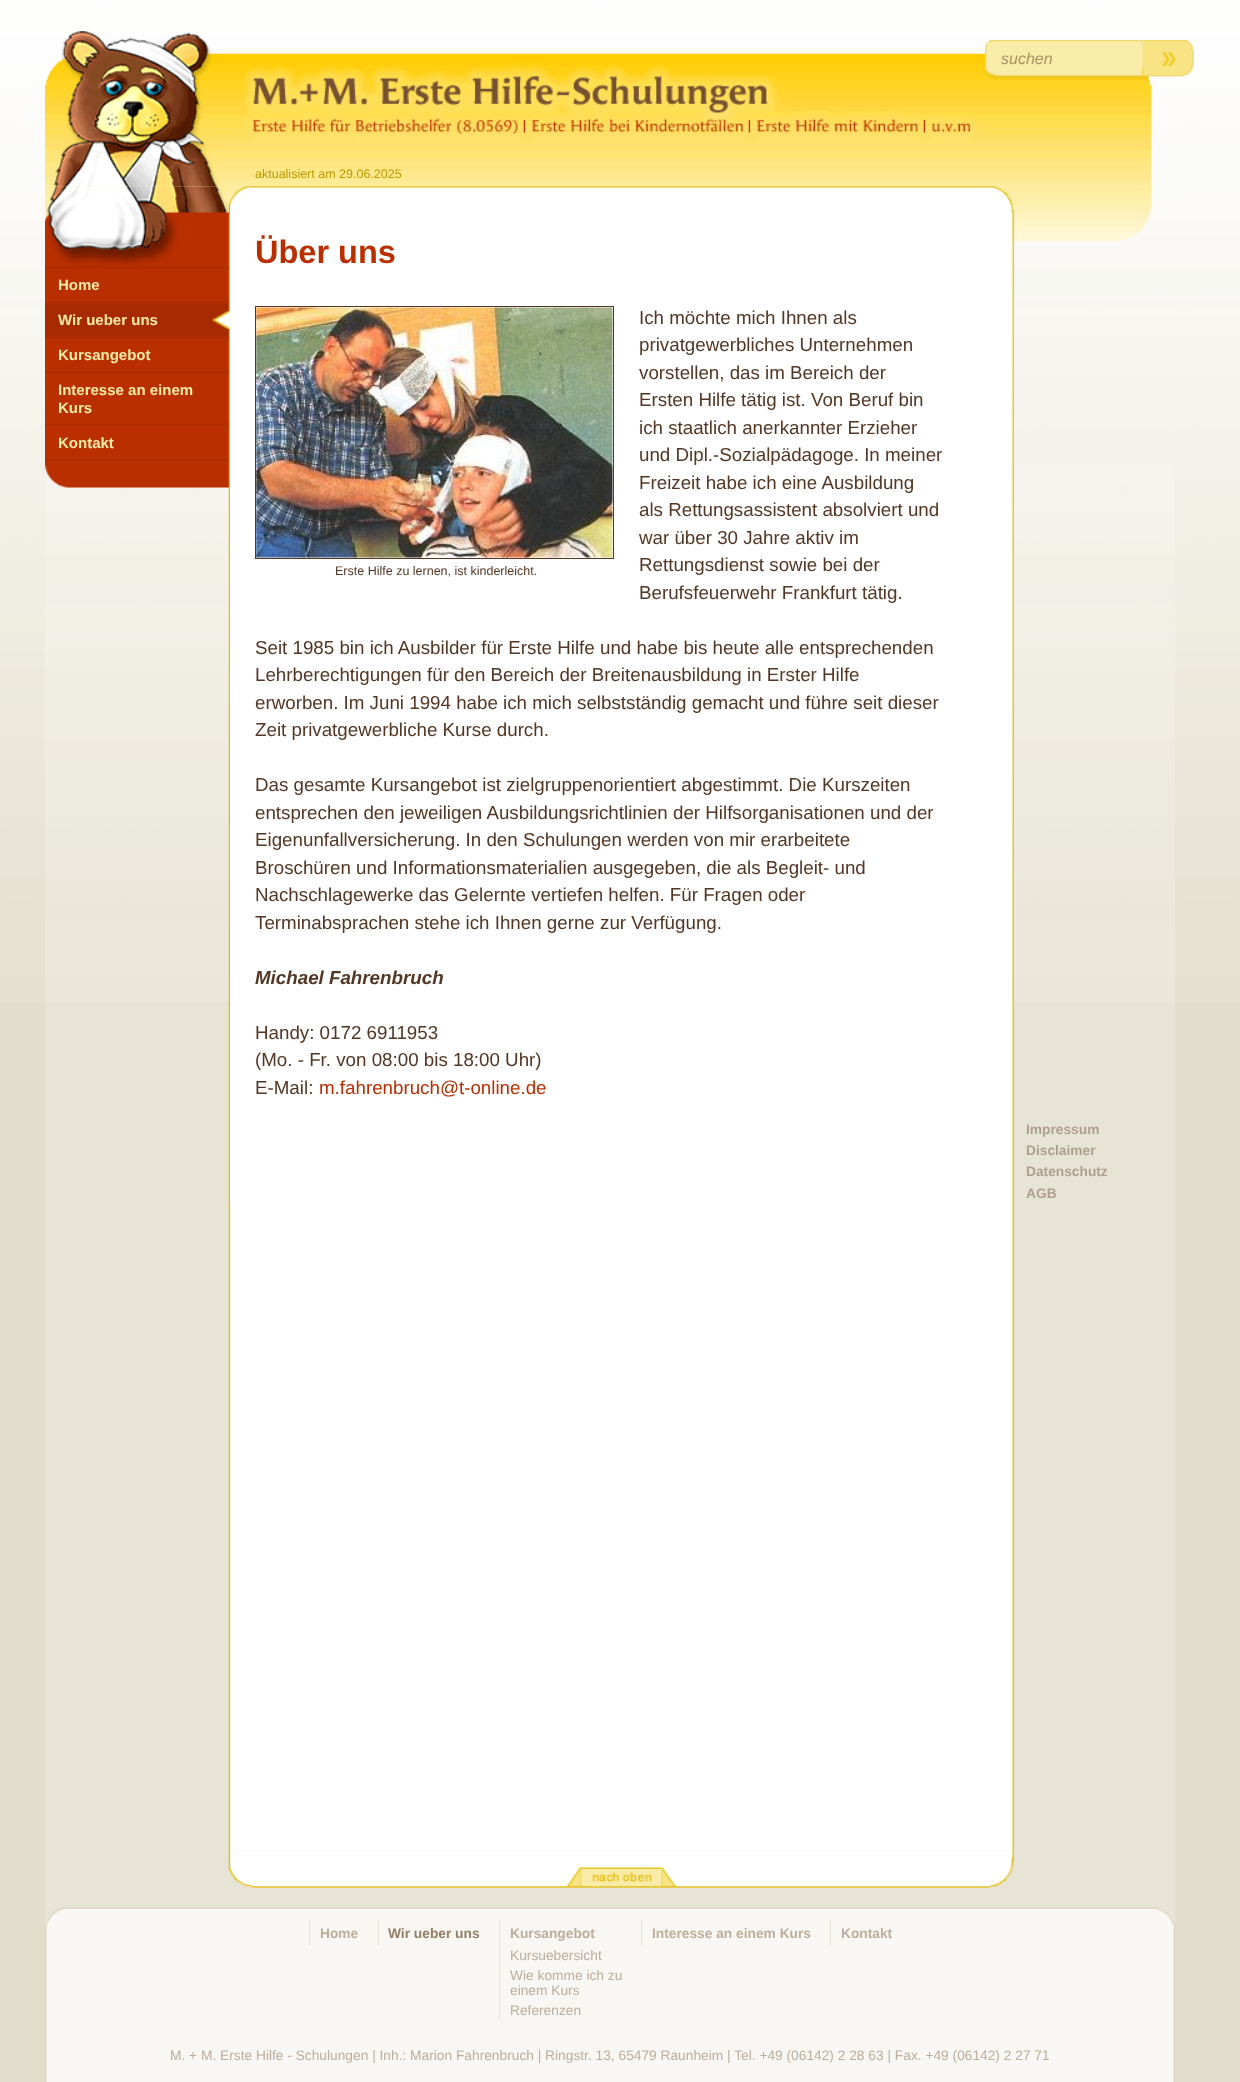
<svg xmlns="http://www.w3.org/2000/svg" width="1240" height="2082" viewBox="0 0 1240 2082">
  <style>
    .t1 { font: italic 16px Liberation Sans; fill: #ad9064; }
    .t2 { font: 12.5px Liberation Sans; fill: #bb9a00; }
    .t3 { font: bold 15px Liberation Sans; fill: #f9eba8; }
    .t4 { font: bold 32.5px Liberation Sans; fill: #b92f00; }
    .t5 { font: 18.75px Liberation Sans; fill: #533724; }
    .t6 { font: 12.5px Liberation Sans; fill: #533724; }
    .t7 { font: italic bold 18.75px Liberation Sans; fill: #533724; }
    .t8 { font: 18.75px Liberation Sans; fill: #b92f00; }
    .t9 { font: bold 13.75px Liberation Sans; fill: #aea091; }
    .t10 { font: bold 13.75px Liberation Sans; fill: #bbae9e; }
    .t11 { font: bold 13.75px Liberation Sans; fill: #927e65; }
    .t12 { font: 13.75px Liberation Sans; fill: #bbae9e; }
  </style>
  <rect width="100%" height="100%" fill="#e3decb"/>
  <image x="0" y="0" width="1240" height="1002" href="images/1.png"/>
  <rect x="45" y="463" width="1130" height="1464" fill="#ffffff33"/>
  <image x="228" y="186" width="786" height="1666" href="images/7.png"/>
  <rect x="230" y="186" width="1" height="1018" fill="#fff"/>
  <image x="230" y="186" width="757" height="21" href="images/19.png"/>
  <image x="986" y="186" width="166" height="56" href="images/8.png"/>
  <image x="45" y="186" width="185" height="1" href="images/9.png"/>
  <rect x="45" y="266" width="185" height="3" fill="#b12c00"/>
  <image x="228" y="266" width="2" height="3" href="images/11.png"/>
  <image x="45" y="186" width="185" height="81" href="images/10.png"/>
  <image x="45" y="31" width="1107" height="156" href="images/2.png"/>
  <image x="985" y="40" width="158" height="40" href="images/4.png"/>
  <image x="1142" y="40" width="2" height="39" href="images/3.png"/>
  <text x="1001" y="64" class="t1">suchen</text>
  <image x="1143" y="40" width="51" height="40" href="images/5.png"/>
  <image x="1162" y="51" width="15" height="16" href="images/6.png"/>
  <text x="255" y="178" class="t2">aktualisiert am 29.06.2025</text>
  <rect x="45" y="269" width="184" height="32" fill="#b92f00"/>
  <image x="228" y="268" width="2" height="33" href="images/12.png"/>
  <text x="58" y="290" class="t3">Home</text>
  <rect x="45" y="301" width="185" height="3" fill="#b12c00"/>
  <image x="228" y="301" width="2" height="3" href="images/11.png"/>
  <rect x="45" y="304" width="184" height="32" fill="#a82a00"/>
  <image x="212" y="303" width="18" height="33" href="images/13.png"/>
  <text x="58" y="325" class="t3">Wir ueber uns</text>
  <rect x="45" y="336" width="185" height="3" fill="#b12c00"/>
  <image x="228" y="336" width="2" height="3" href="images/11.png"/>
  <rect x="45" y="339" width="184" height="32" fill="#b92f00"/>
  <image x="228" y="338" width="2" height="33" href="images/12.png"/>
  <text x="58" y="360" class="t3">Kursangebot</text>
  <rect x="45" y="371" width="185" height="3" fill="#b12c00"/>
  <image x="228" y="371" width="2" height="3" href="images/11.png"/>
  <rect x="45" y="374" width="185" height="50" fill="#b92f00"/>
  <image x="228" y="373" width="2" height="51" href="images/14.png"/>
  <text x="58" y="395" class="t3">Interesse an einem</text>
  <text x="58" y="413" class="t3">Kurs</text>
  <rect x="45" y="424" width="185" height="2" fill="#b12c00"/>
  <image x="228" y="423" width="2" height="3" href="images/15.png"/>
  <rect x="45" y="426" width="185" height="33" fill="#b92f00"/>
  <image x="228" y="426" width="2" height="33" href="images/16.png"/>
  <text x="58" y="448" class="t3">Kontakt</text>
  <rect x="45" y="459" width="185" height="3" fill="#b12c00"/>
  <image x="228" y="458" width="2" height="4" href="images/17.png"/>
  <image x="45" y="461" width="185" height="27" href="images/18.png"/>
  <text x="255" y="263" class="t4">Über uns</text>
  <text x="639" y="324" class="t5">Ich möchte mich Ihnen als</text>
  <text x="639" y="351" class="t5">privatgewerbliches Unternehmen</text>
  <text x="639" y="379" class="t5">vorstellen, das im Bereich der</text>
  <text x="639" y="406" class="t5">Ersten Hilfe tätig ist. Von Beruf bin</text>
  <text x="639" y="434" class="t5">ich staatlich anerkannter Erzieher</text>
  <text x="639" y="461" class="t5">und Dipl.-Sozialpädagoge. In meiner</text>
  <text x="639" y="489" class="t5">Freizeit habe ich eine Ausbildung</text>
  <text x="639" y="516" class="t5">als Rettungsassistent absolviert und</text>
  <text x="639" y="544" class="t5">war über 30 Jahre aktiv im</text>
  <rect x="255.5" y="306.5" width="358" height="252" fill="none" stroke="#533724"/>
  <image x="256" y="307" width="357" height="251" href="images/20.png"/>
  <text x="335" y="575" class="t6">Erste Hilfe zu lernen, ist kinderleicht.</text>
  <text x="639" y="571" class="t5">Rettungsdienst sowie bei der</text>
  <text x="639" y="599" class="t5">Berufsfeuerwehr Frankfurt tätig.</text>
  <text x="255" y="654" class="t5">Seit 1985 bin ich Ausbilder für Erste Hilfe und habe bis heute alle entsprechenden</text>
  <text x="255" y="681" class="t5">Lehrberechtigungen für den Bereich der Breitenausbildung in Erster Hilfe</text>
  <text x="255" y="709" class="t5">erworben. Im Juni 1994 habe ich mich selbstständig gemacht und führe seit dieser</text>
  <text x="255" y="736" class="t5">Zeit privatgewerbliche Kurse durch.</text>
  <text x="255" y="791" class="t5">Das gesamte Kursangebot ist zielgruppenorientiert abgestimmt. Die Kurszeiten</text>
  <text x="255" y="819" class="t5">entsprechen den jeweiligen Ausbildungsrichtlinien der Hilfsorganisationen und der</text>
  <text x="255" y="846" class="t5">Eigenunfallversicherung. In den Schulungen werden von mir erarbeitete</text>
  <text x="255" y="874" class="t5">Broschüren und Informationsmaterialien ausgegeben, die als Begleit- und</text>
  <text x="255" y="901" class="t5">Nachschlagewerke das Gelernte vertiefen helfen. Für Fragen oder</text>
  <text x="255" y="929" class="t5">Terminabsprachen stehe ich Ihnen gerne zur Verfügung.</text>
  <text x="255" y="984" class="t7">Michael Fahrenbruch</text>
  <text x="255" y="1039" class="t5">Handy: 0172 6911953</text>
  <text x="255" y="1066" class="t5">(Mo. - Fr. von 08:00 bis 18:00 Uhr)</text>
  <text x="255" y="1094" class="t5">E-Mail:</text>
  <text x="319" y="1094" class="t8">m.fahrenbruch@t-online.de</text>
  <text x="1026" y="1134" class="t9">Impressum</text>
  <text x="1026" y="1155" class="t9">Disclaimer</text>
  <text x="1026" y="1176" class="t9">Datenschutz</text>
  <text x="1026" y="1198" class="t9">AGB</text>
  <image x="228" y="1851" width="786" height="37" href="images/21.png"/>
  <image x="45" y="1907" width="1130" height="175" href="images/22.png"/>
  <rect x="309" y="1920" width="1" height="25" fill="#e6e1d9"/>
  <text x="320" y="1938" class="t10">Home</text>
  <rect x="378" y="1920" width="1" height="25" fill="#e6e1d9"/>
  <text x="388" y="1938" class="t11">Wir ueber uns</text>
  <rect x="499" y="1920" width="1" height="100" fill="#e6e1d9"/>
  <text x="510" y="1938" class="t10">Kursangebot</text>
  <text x="510" y="1960" class="t12">Kursuebersicht</text>
  <text x="510" y="1980" class="t12">Wie komme ich zu</text>
  <text x="510" y="1995" class="t12">einem Kurs</text>
  <text x="510" y="2015" class="t12">Referenzen</text>
  <rect x="641" y="1920" width="1" height="25" fill="#e6e1d9"/>
  <text x="652" y="1938" class="t10">Interesse an einem Kurs</text>
  <rect x="830" y="1920" width="1" height="25" fill="#e6e1d9"/>
  <text x="841" y="1938" class="t10">Kontakt</text>
  <text x="170" y="2060" class="t12">M. + M. Erste Hilfe - Schulungen | Inh.: Marion Fahrenbruch | Ringstr. 13, 65479 Raunheim | Tel. +49 (06142) 2 28 63 | Fax. +49 (06142) 2 27 71</text>
</svg>
